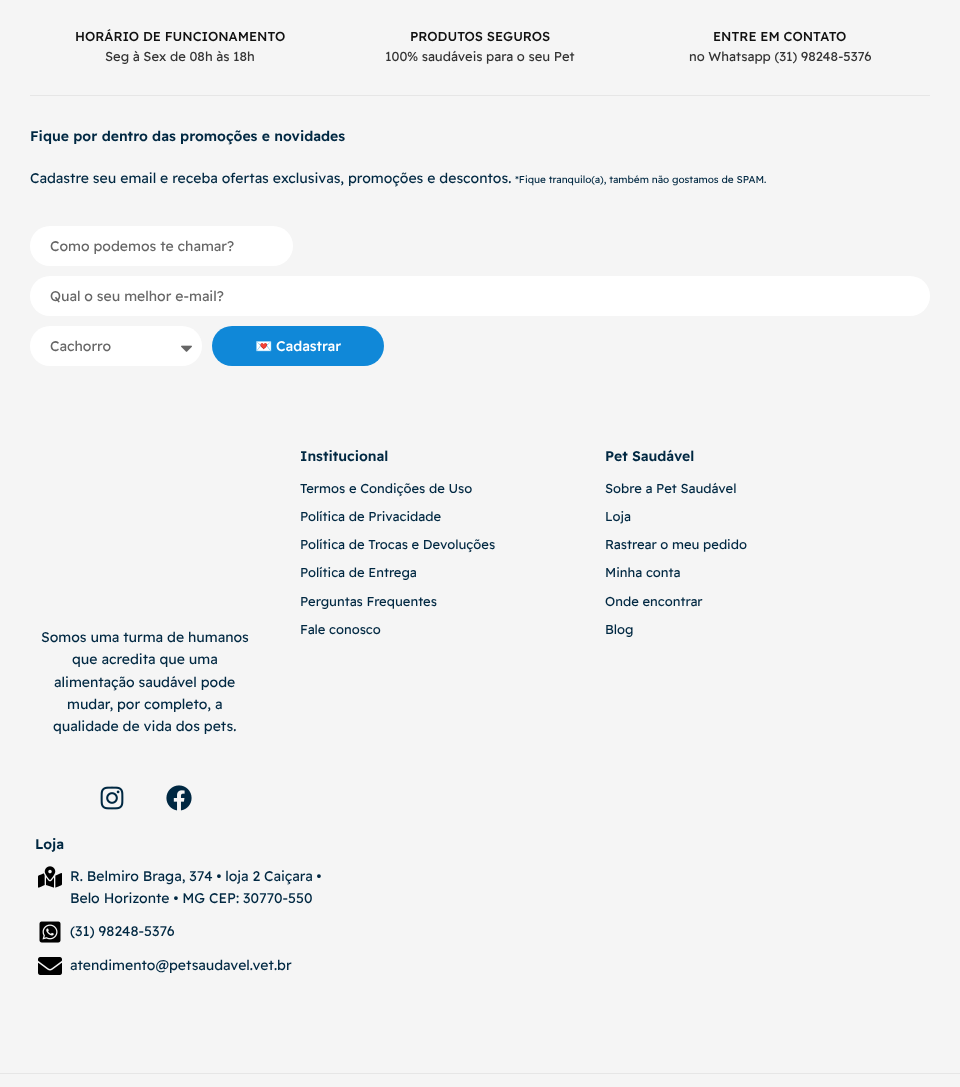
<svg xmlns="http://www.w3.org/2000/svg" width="960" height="1087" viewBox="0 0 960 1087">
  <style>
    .t1 { font: 500 13px Readex Pro; fill: #111; }
    .t2 { font: 13px Readex Pro; fill: #333; }
    .t3 { font: 600 14px Readex Pro; fill: #002842; }
    .t4 { font: 14px Readex Pro; fill: #002842; }
    .t5 { font: 10px Readex Pro; fill: #002842; }
    .t6 { font: 14px Readex Pro; fill: #666; }
    .t7 { font: 14px Noto Color Emoji; fill: #fff; }
    .t8 { font: 500 14px Readex Pro; fill: #fff; }
    .t9 { font: 13px Readex Pro; fill: #002842; }
  </style>
  <rect width="100%" height="100%" fill="#f5f5f5"/>
  <text x="75" y="41" class="t1">HORÁRIO DE FUNCIONAMENTO</text>
  <text x="105" y="61" class="t2">Seg à Sex de 08h às 18h</text>
  <text x="410" y="41" class="t1">PRODUTOS SEGUROS</text>
  <text x="385" y="61" class="t2">100% saudáveis para o seu Pet</text>
  <text x="713" y="41" class="t1">ENTRE EM CONTATO</text>
  <text x="689" y="61" class="t2">no Whatsapp (31) 98248-5376</text>
  <rect x="30" y="95" width="900" height="1" fill="#e6e6e6"/>
  <text x="30" y="141" class="t3">Fique por dentro das promoções e novidades</text>
  <text x="30" y="183" class="t4">Cadastre seu email e receba ofertas exclusivas, promoções e descontos.</text>
  <text x="515" y="183" class="t5">*Fique tranquilo(a), também não gostamos de SPAM.</text>
  <rect x="30" y="226" width="263" height="40" rx="20" fill="#fff"/>
  <text x="50" y="251" class="t6">Como podemos te chamar?</text>
  <rect x="30" y="276" width="900" height="40" rx="20" fill="#fff"/>
  <text x="50" y="301" class="t6">Qual o seu melhor e-mail?</text>
  <rect x="30" y="326" width="172" height="40" rx="20" fill="#fff"/>
  <text x="50" y="351" class="t6">Cachorro</text>
  <image x="181" y="345" width="11" height="7" href="images/1.png"/>
  <rect x="212" y="326" width="172" height="40" rx="20" fill="#1088d8"/>
  <text x="255" y="351" class="t7">💌</text>
  <text x="276" y="351" class="t8">Cadastrar</text>
  <text x="300" y="461" class="t3">Institucional</text>
  <text x="300" y="493" class="t9">Termos e Condições de Uso</text>
  <text x="300" y="521" class="t9">Política de Privacidade</text>
  <text x="300" y="549" class="t9">Política de Trocas e Devoluções</text>
  <text x="300" y="577" class="t9">Política de Entrega</text>
  <text x="300" y="606" class="t9">Perguntas Frequentes</text>
  <text x="300" y="634" class="t9">Fale conosco</text>
  <text x="605" y="461" class="t3">Pet Saudável</text>
  <text x="605" y="493" class="t9">Sobre a Pet Saudável</text>
  <text x="605" y="521" class="t9">Loja</text>
  <text x="605" y="549" class="t9">Rastrear o meu pedido</text>
  <text x="605" y="577" class="t9">Minha conta</text>
  <text x="605" y="606" class="t9">Onde encontrar</text>
  <text x="605" y="634" class="t9">Blog</text>
  <text x="41" y="642" class="t4">Somos uma turma de humanos</text>
  <text x="72" y="664" class="t4">que acredita que uma</text>
  <text x="54" y="687" class="t4">alimentação saudável pode</text>
  <text x="67" y="709" class="t4">mudar, por completo, a</text>
  <text x="53" y="731" class="t4">qualidade de vida dos pets.</text>
  <image x="100" y="786" width="24" height="24" href="images/2.png"/>
  <image x="166" y="785" width="26" height="26" href="images/3.png"/>
  <text x="35" y="849" class="t3">Loja</text>
  <image x="38" y="866" width="24" height="22" href="images/4.png"/>
  <text x="70" y="881" class="t4">R. Belmiro Braga, 374 • loja 2 Caiçara •</text>
  <text x="70" y="903" class="t4">Belo Horizonte • MG CEP: 30770-550</text>
  <image x="39" y="921" width="22" height="22" href="images/5.png"/>
  <text x="70" y="936" class="t4">(31) 98248-5376</text>
  <image x="38" y="957" width="24" height="18" href="images/6.png"/>
  <text x="70" y="970" class="t4">atendimento@petsaudavel.vet.br</text>
  <rect x="0" y="1073" width="960" height="1" fill="#e6e6e6"/>
</svg>
